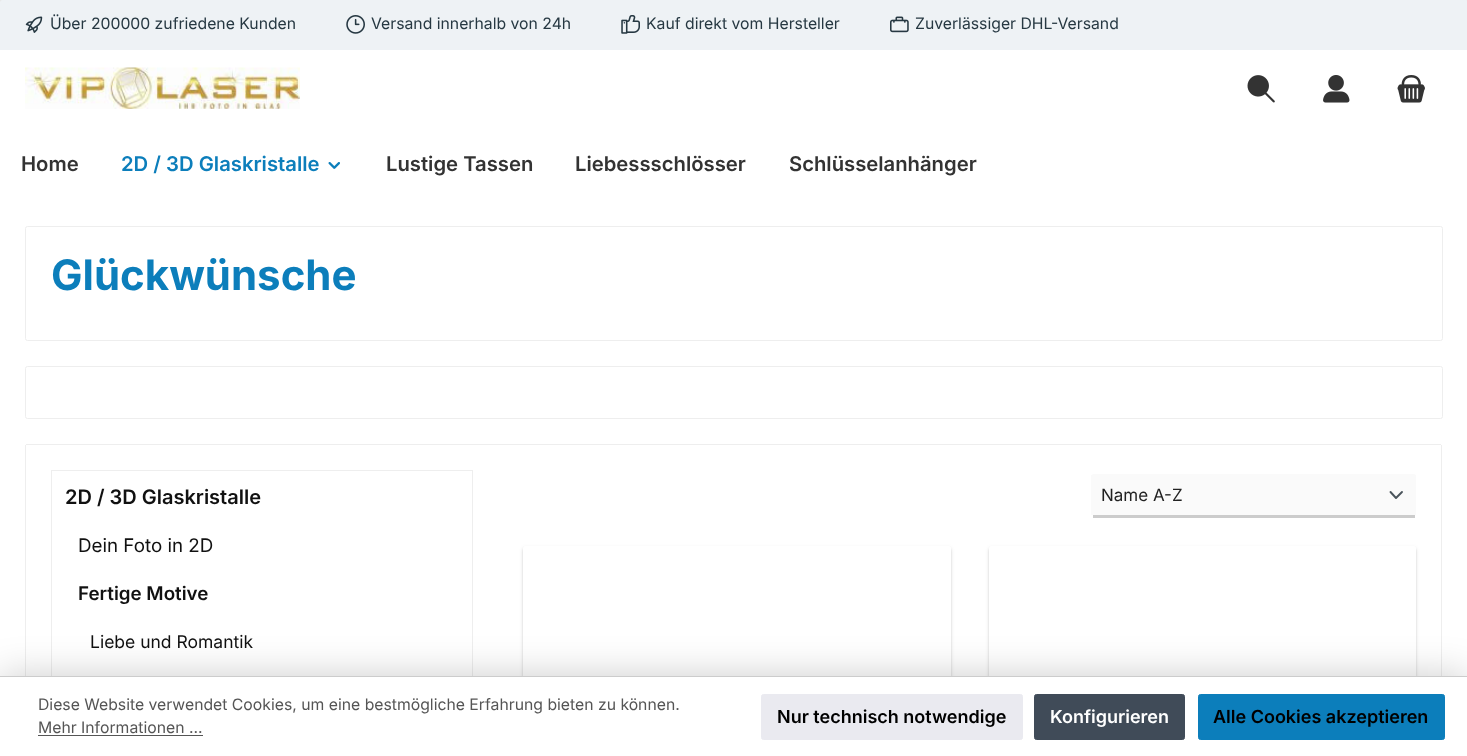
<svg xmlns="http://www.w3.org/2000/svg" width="1467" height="756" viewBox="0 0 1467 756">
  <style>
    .t1 { font: 15.75px Inter; fill: #263842; }
    .t2 { font: 600 20.25px Inter; fill: #333; }
    .t3 { font: 600 20.25px Inter; fill: #0c7ebb; }
    .t4 { font: bold 42px Inter; fill: #0c7ebb; }
    .t5 { font: 600 20px Inter; fill: #111; }
    .t6 { font: 18.75px Inter; fill: #111; }
    .t7 { font: 600 18.75px Inter; fill: #111; }
    .t8 { font: 17.5px Inter; fill: #111; }
    .t9 { font: 17px Inter; fill: #222; }
    .t10 { font: 15.75px Inter; fill: #555; }
    .t11 { font: 600 18px Inter; fill: #000; }
    .t12 { font: 600 18px Inter; fill: #fff; }
  </style>
  <rect width="100%" height="100%" fill="#fafafa"/>
  <rect x="0" y="0" width="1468" height="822" rx="9" fill="#0000004d" filter="blur(19px)"/>
  <rect x="0" y="0" width="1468" height="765" rx="9" fill="#fff"/>
  <path d="M2.5 0H1465.5C1467 0 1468 1 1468 2.5V50H0V2.5C0 1 1 0 2.5 0Z" fill="#eef2f5"/>
  <image x="25" y="16" width="18" height="17" href="images/1.png"/>
  <text x="50" y="29" class="t1">Über 200000 zufriedene Kunden</text>
  <image x="346" y="15" width="19" height="19" href="images/2.png"/>
  <text x="371" y="29" class="t1">Versand innerhalb von 24h</text>
  <image x="621" y="15" width="19" height="19" href="images/3.png"/>
  <text x="646" y="29" class="t1">Kauf direkt vom Hersteller</text>
  <image x="890" y="16" width="19" height="17" href="images/4.png"/>
  <text x="915" y="29" class="t1">Zuverlässiger DHL-Versand</text>
  <image x="25" y="67" width="275" height="42" href="images/5.png"/>
  <image x="1247" y="75" width="28" height="28" href="images/6.png"/>
  <image x="1323" y="75" width="27" height="28" href="images/7.png"/>
  <image x="1397" y="75" width="28" height="28" href="images/8.png"/>
  <text x="21" y="171" class="t2">Home</text>
  <text x="121" y="171" class="t3">2D / 3D Glaskristalle</text>
  <image x="328" y="162" width="12" height="7" href="images/9.png"/>
  <text x="386" y="171" class="t2">Lustige Tassen</text>
  <text x="575" y="171" class="t2">Liebessschlösser</text>
  <text x="789" y="171" class="t2">Schlüsselanhänger</text>
  <rect x="25.5" y="226.5" width="1417" height="114" rx="2" fill="none" stroke="#eee"/>
  <text x="51" y="290" class="t4">Glückwünsche</text>
  <rect x="25.5" y="366.5" width="1417" height="52" rx="2" fill="none" stroke="#eee"/>
  <rect x="26" y="444" width="1415" height="1" fill="#eee"/>
  <rect x="25" y="445" width="1" height="231" fill="#eee"/>
  <rect x="51.5" y="470.5" width="421" height="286" fill="none" stroke="#eee"/>
  <text x="65" y="504" class="t5">2D / 3D Glaskristalle</text>
  <text x="78" y="552" class="t6">Dein Foto in 2D</text>
  <text x="78" y="600" class="t7">Fertige Motive</text>
  <text x="90" y="648" class="t8">Liebe und Romantik</text>
  <rect x="1441" y="445" width="1" height="231" fill="#eee"/>
  <path d="M1094 474H1414C1415 474 1416 475 1416 476V515H1091V476C1091 475 1092 474 1094 474Z" fill="#fafafa"/>
  <path d="M1390.5 492L1396 498L1402 492" fill="none" stroke="#4a545b" stroke-width="1.9" stroke-linecap="round" stroke-linejoin="round"/>
  <rect x="1093" y="515" width="322" height="3" fill="#ccc"/>
  <text x="1101" y="501" class="t9">Name A-Z</text>
  <rect x="523" y="548" width="428" height="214" rx="2.5" fill="#0000001a" filter="blur(1px)"/>
  <rect x="523" y="548" width="428" height="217" rx="2.5" fill="#0000001a" filter="blur(2px)"/>
  <rect x="523" y="546" width="428" height="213" rx="2.5" fill="#fff"/>
  <rect x="989" y="548" width="427" height="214" rx="2.5" fill="#0000001a" filter="blur(1px)"/>
  <rect x="989" y="548" width="427" height="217" rx="2.5" fill="#0000001a" filter="blur(2px)"/>
  <rect x="989" y="546" width="427" height="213" rx="2.5" fill="#fff"/>
  <rect x="0" y="676" width="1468" height="80" fill="#00000033" filter="blur(19px)"/>
  <rect x="0" y="677" width="1467" height="79" fill="#fff"/>
  <rect x="0" y="676" width="1467" height="1" fill="#ccc"/>
  <text x="38" y="710" class="t10">Diese Website verwendet Cookies, um eine bestmögliche Erfahrung bieten zu können.</text>
  <text x="38" y="733" class="t10">Mehr Informationen ...</text>
  <rect x="38" y="735" width="165" height="1" fill="#555"/>
  <rect x="761.5" y="694.5" width="261" height="45" rx="2" fill="#eaeaf0" stroke="#eaeaf0"/>
  <text x="777" y="723" class="t11">Nur technisch notwendige</text>
  <rect x="1034.5" y="694.5" width="150" height="45" rx="2" fill="#404b58" stroke="#404b58"/>
  <text x="1050" y="723" class="t12">Konfigurieren</text>
  <rect x="1198.5" y="694.5" width="246" height="45" rx="2" fill="#0c7ebb" stroke="#0c7ebb"/>
  <text x="1213" y="723" class="t11">Alle Cookies akzeptieren</text>
</svg>
